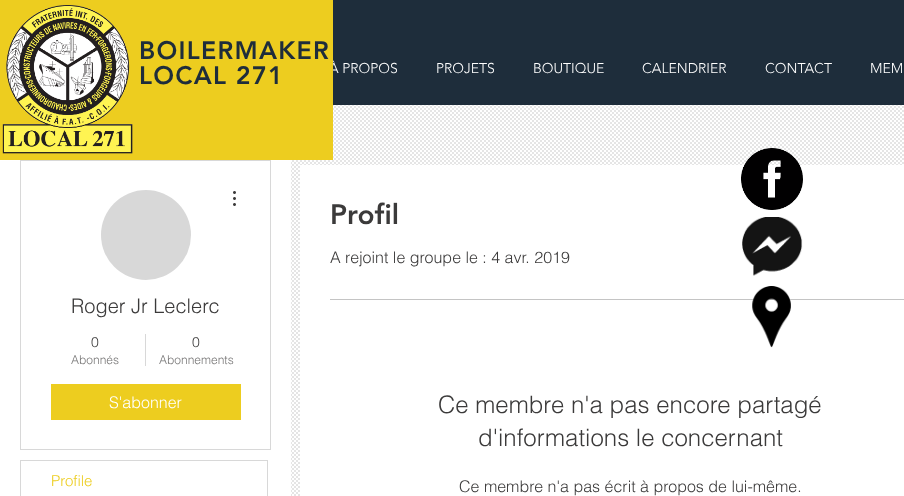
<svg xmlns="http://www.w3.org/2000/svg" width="904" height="496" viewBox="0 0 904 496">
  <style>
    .t1 { font: 300 14px 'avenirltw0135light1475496'; fill: #fff; }
    .t2 { font: 900 25px 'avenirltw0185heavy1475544'; letter-spacing: 1.25px; fill: #1e2d3b; }
    .t3 { font: 300 20px helvetica; fill: #3b3a3a; }
    .t4 { font: 300 14px helvetica; fill: #3b3a3a; }
    .t5 { font: 300 12px helvetica; fill: #767575; }
    .t6 { font: 300 16px helvetica; fill: #fff; }
    .t7 { font: 300 15px helvetica; fill: #edcd1f; }
    .t8 { font: 900 28px 'avenirltw0185heavy1475544'; fill: #3b3a3a; }
    .t9 { font: 300 16px helvetica; fill: #3b3a3a; }
    .t10 { font: 300 24px helvetica; fill: #3b3a3a; }
  </style>
  <rect width="100%" height="100%" fill="#fff"/>
  <rect x="333" y="0" width="571" height="105" fill="#1e2d3b"/>
  <text x="329" y="73" class="t1">À PROPOS</text>
  <image x="291" y="105" width="613" height="391" href="images/6.png"/>
  <rect x="0" y="0" width="333" height="160" fill="#edcd1f"/>
  <image x="2" y="5" width="131" height="149" href="images/1.png"/>
  <text x="139" y="59" class="t2">BOILERMAKER</text>
  <text x="139" y="84" class="t2">LOCAL 271</text>
  <text x="436" y="73" class="t1">PROJETS</text>
  <text x="533" y="73" class="t1">BOUTIQUE</text>
  <text x="642" y="73" class="t1">CALENDRIER</text>
  <text x="765" y="73" class="t1">CONTACT</text>
  <text x="870" y="73" class="t1">MEM</text>
  <rect x="300" y="165" width="604" height="331" fill="#fff"/>
  <image x="741" y="148" width="62" height="62" href="images/2.png"/>
  <image x="742" y="217" width="61" height="59" href="images/3.png"/>
  <rect x="330" y="299" width="574" height="1" fill="#c4c4c4"/>
  <image x="752" y="286" width="39" height="62" href="images/4.png"/>
  <rect x="20.5" y="160.5" width="250" height="289" fill="none" stroke="#d8d8d8"/>
  <circle cx="146" cy="235" r="45" fill="#d8d8d8"/>
  <image x="233" y="191" width="3" height="15" href="images/5.png"/>
  <text x="71" y="313" class="t3">Roger Jr Leclerc</text>
  <text x="91" y="347" class="t4">0</text>
  <text x="71" y="364" class="t5">Abonnés</text>
  <rect x="145" y="334" width="1" height="32" fill="#d8d8d8"/>
  <text x="192" y="347" class="t4">0</text>
  <text x="159" y="364" class="t5">Abonnements</text>
  <rect x="51" y="384" width="190" height="36" fill="#edcd1f"/>
  <text x="109" y="408" class="t6">S'abonner</text>
  <rect x="20.5" y="460.5" width="247" height="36" fill="none" stroke="#d8d8d8"/>
  <text x="51" y="486" class="t7">Profile</text>
  <text x="330" y="224" class="t8">Profil</text>
  <text x="330" y="263" class="t9">A rejoint le groupe le : 4 avr. 2019</text>
  <text x="438" y="413" class="t10">Ce membre n'a pas encore partagé</text>
  <text x="478" y="446" class="t10">d'informations le concernant</text>
  <text x="459" y="492" class="t9">Ce membre n'a pas écrit à propos de lui-même.</text>
</svg>
